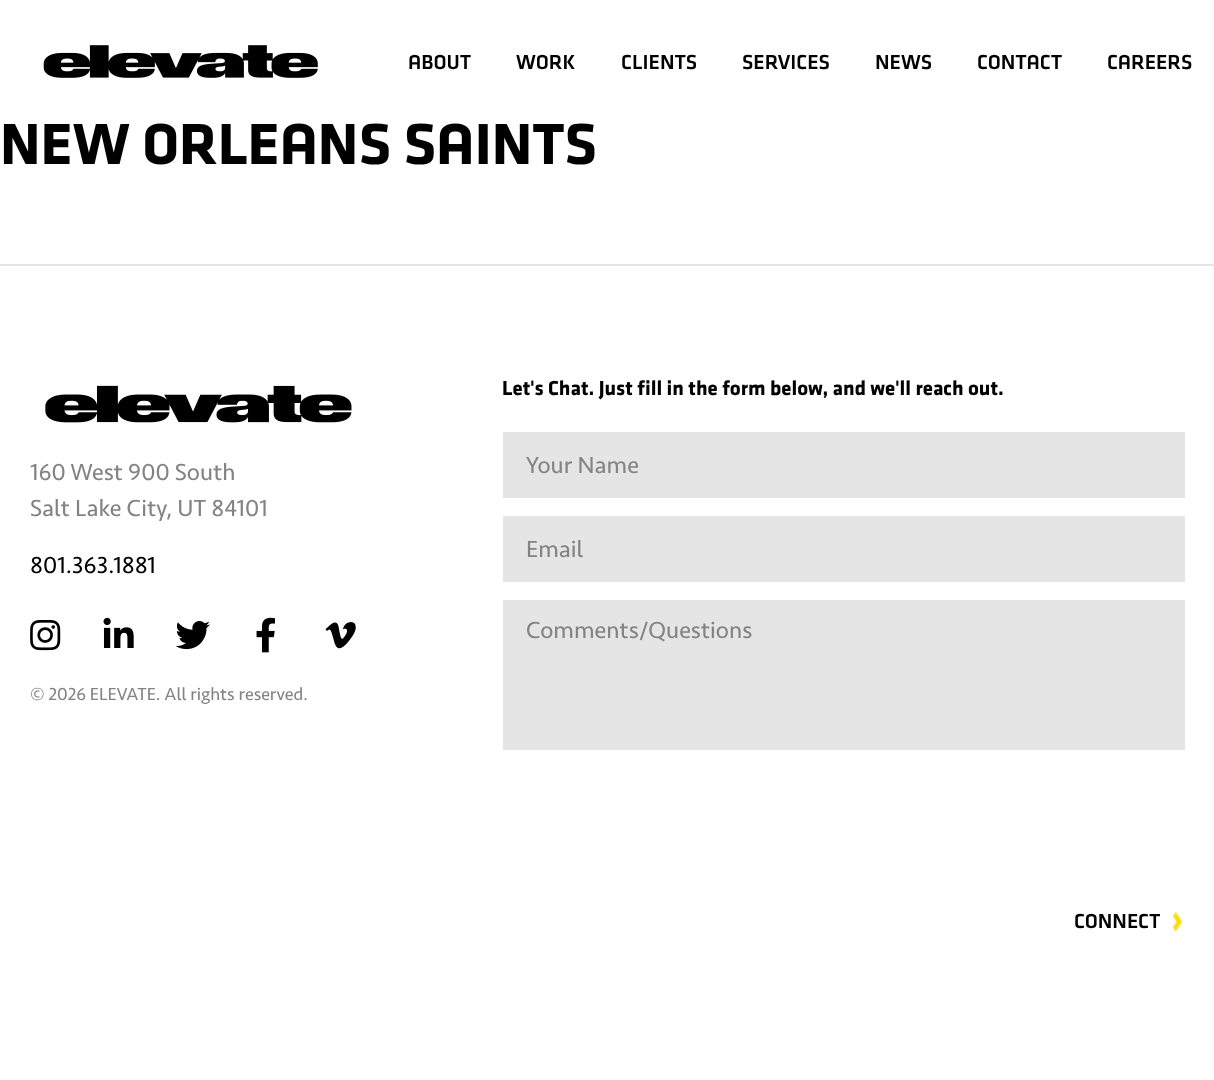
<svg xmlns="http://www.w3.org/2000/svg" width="1214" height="1080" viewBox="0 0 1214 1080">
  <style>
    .t1 { font: 500 21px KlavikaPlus; fill: #000; }
    .t2 { font: bold 60px KlavikaPlus; fill: #000; }
    .t3 { font: 24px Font; fill: #838383; }
    .t4 { font: 24px Font; fill: #000; }
    .t5 { font: 18px Font; fill: #838383; }
    .t6 { font: bold 21px KlavikaPlus; fill: #000; }
  </style>
  <rect width="100%" height="100%" fill="#fff"/>
  <image x="43" y="45" width="275" height="33" href="images/1.png"/>
  <text x="408" y="69" class="t1">ABOUT</text>
  <text x="516" y="69" class="t1">WORK</text>
  <text x="621" y="69" class="t1">CLIENTS</text>
  <text x="742" y="69" class="t1">SERVICES</text>
  <text x="875" y="69" class="t1">NEWS</text>
  <text x="977" y="69" class="t1">CONTACT</text>
  <text x="1107" y="69" class="t1">CAREERS</text>
  <text x="0" y="164" class="t2">NEW ORLEANS SAINTS</text>
  <rect x="0" y="264" width="1214" height="2" fill="#e5e5e5"/>
  <image x="45" y="385" width="307" height="38" href="images/2.png"/>
  <text x="30" y="480" class="t3">160 West 900 South</text>
  <text x="30" y="516" class="t3">Salt Lake City, UT 84101</text>
  <text x="30" y="573" class="t4">801.363.1881</text>
  <image x="30" y="620" width="31" height="31" href="images/3.png"/>
  <image x="103" y="617" width="31" height="31" href="images/4.png"/>
  <image x="175" y="621" width="35" height="29" href="images/5.png"/>
  <image x="256" y="617" width="19" height="36" href="images/6.png"/>
  <image x="325" y="622" width="31" height="27" href="images/7.png"/>
  <text x="30" y="700" class="t5">© 2026 ELEVATE. All rights reserved.</text>
  <text x="502" y="395" class="t6">Let's Chat. Just fill in the form below, and we'll reach out.</text>
  <rect x="503" y="432" width="682" height="66" fill="#e5e5e5"/>
  <text x="526" y="473" class="t3">Your Name</text>
  <rect x="503" y="516" width="682" height="66" fill="#e5e5e5"/>
  <text x="526" y="557" class="t3">Email</text>
  <rect x="503" y="600" width="682" height="150" fill="#e5e5e5"/>
  <text x="526" y="638" class="t3">Comments/Questions</text>
  <text x="1074" y="928" class="t1">CONNECT</text>
  <image x="1173" y="912" width="9" height="20" href="images/8.png"/>
</svg>
